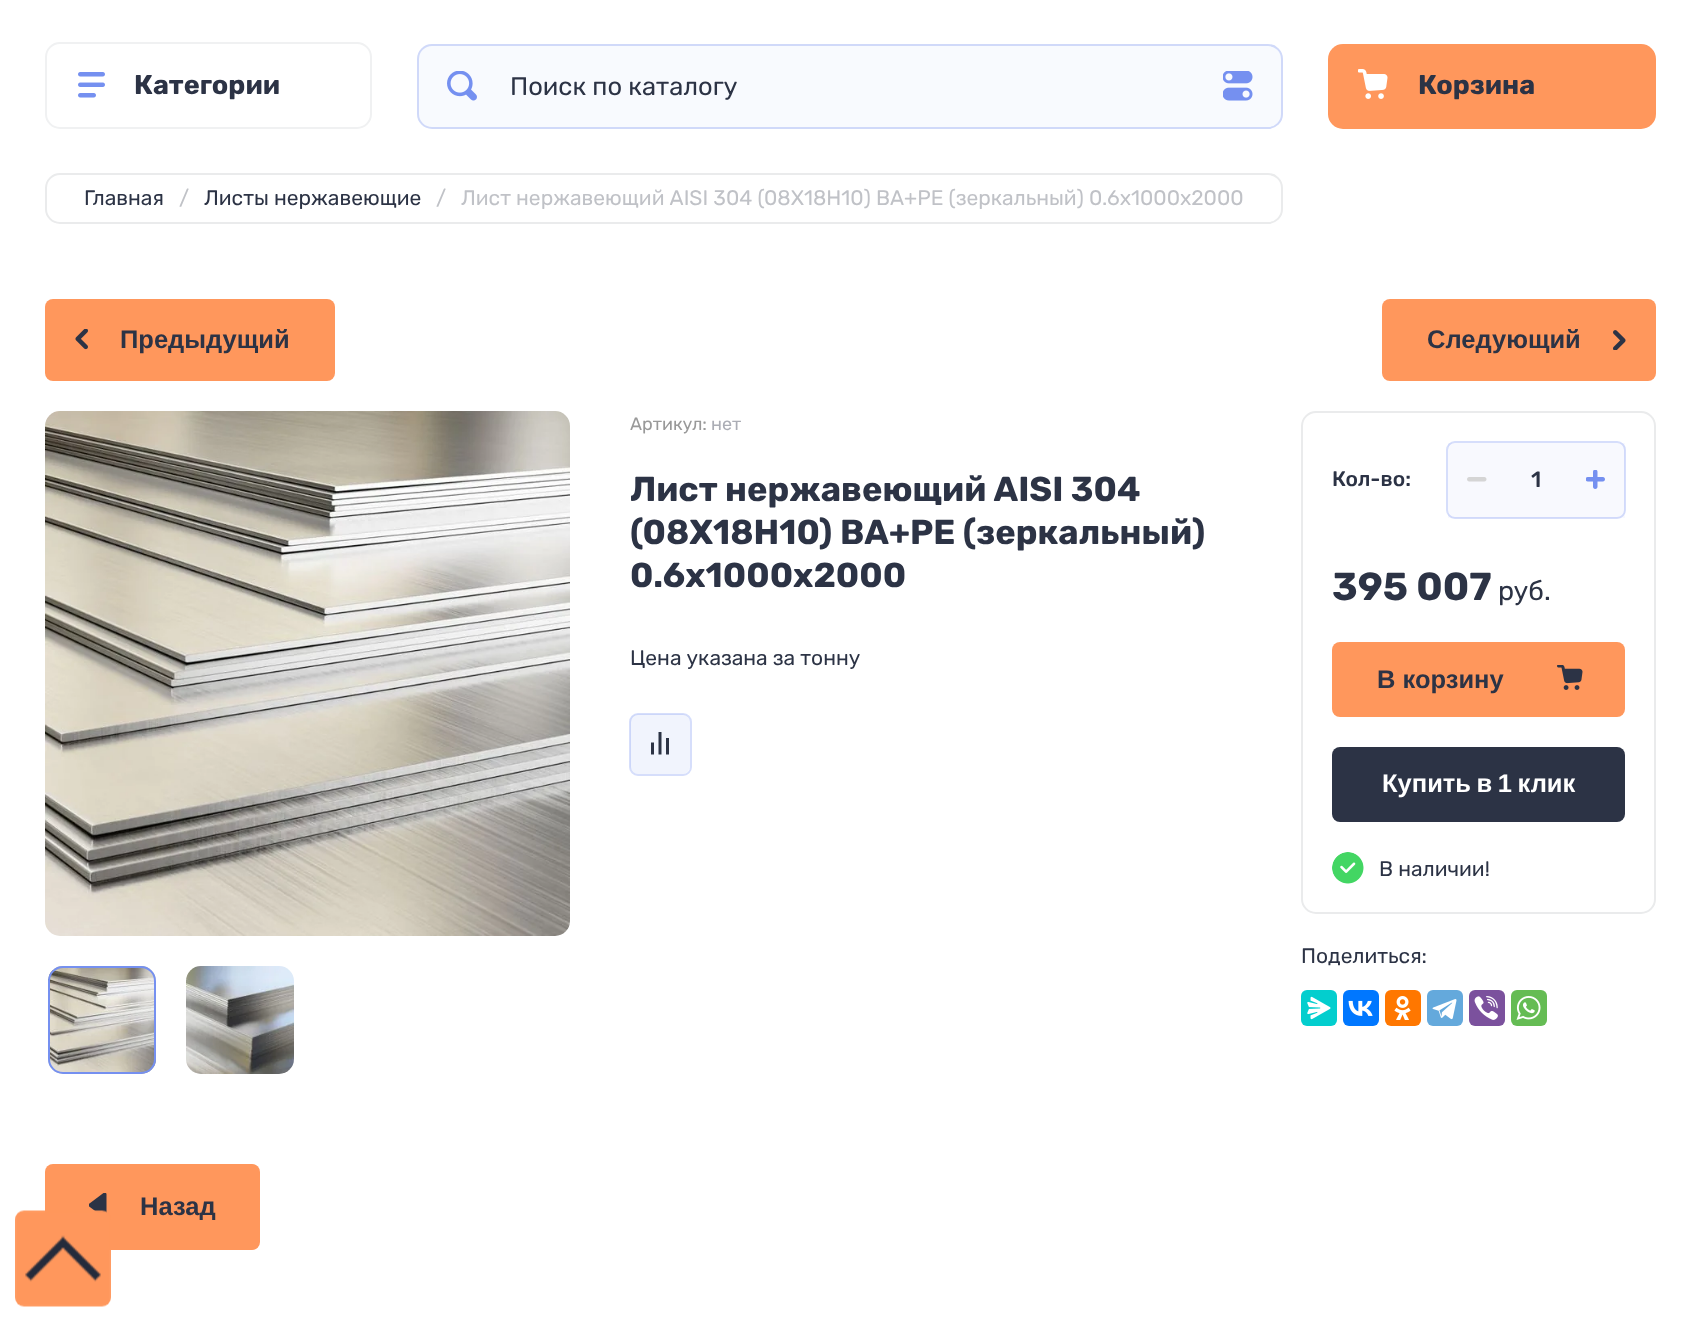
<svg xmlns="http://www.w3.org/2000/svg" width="1701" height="1321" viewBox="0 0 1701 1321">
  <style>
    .t1 { font: bold 27px Rubik; fill: #2c3345; }
    .t2 { font: 25.5px Rubik; fill: #2c3345; }
    .t3 { font: 21px Rubik; fill: #2c3345; }
    .t4 { font: 21px Rubik; fill: #c0c2c7; }
    .t5 { font: bold 25.5px Liberation Sans; fill: #2c3345; }
    .t6 { font: 18px Rubik; fill: #999; }
    .t7 { font: 18px Rubik; fill: #abadb5; }
    .t8 { font: bold 34.5px Rubik; fill: #2c3345; }
    .t9 { font: 500 21px Rubik; fill: #2c3345; }
    .t10 { font: 500 22px Rubik; fill: #2c3345; }
    .t11 { font: bold 39px Rubik; fill: #2c3345; }
    .t12 { font: 27px Rubik; fill: #2c3345; }
    .t13 { font: bold 25.5px Liberation Sans; fill: #fff; }
  </style>
  <rect width="100%" height="100%" fill="#fff"/>
  <rect x="46" y="43" width="325" height="85" rx="14" fill="none" stroke="#f0f1f2" stroke-width="2"/>
  <image x="78" y="72" width="27" height="26" href="images/1.png"/>
  <text x="134" y="94" class="t1">Категории</text>
  <rect x="417" y="44" width="866" height="85" rx="15" fill="#f8fafe"/>
  <rect x="418" y="45" width="864" height="83" rx="14" fill="none" stroke="#7590f04d" stroke-width="2"/>
  <image x="447" y="71" width="30" height="30" href="images/2.png"/>
  <text x="510" y="95" class="t2">Поиск по каталогу</text>
  <image x="1223" y="71" width="30" height="30" href="images/3.png"/>
  <rect x="1328" y="44" width="328" height="85" rx="15" fill="#ff975c"/>
  <image x="1358" y="69" width="30" height="30" href="images/4.png"/>
  <text x="1418" y="94" class="t1">Корзина</text>
  <rect x="46" y="174" width="1236" height="49" rx="14" fill="none" stroke="#eaebec" stroke-width="2"/>
  <text x="84" y="205" class="t3">Главная</text>
  <text x="179" y="205" class="t4">/</text>
  <text x="204" y="205" class="t3">Листы нержавеющие</text>
  <text x="436" y="205" class="t4">/</text>
  <text x="461" y="205" class="t4">Лист нержавеющий AISI 304 (08Х18Н10)</text>
  <text x="876" y="205" class="t4">BA+PE (зеркальный) 0.6x1000x2000</text>
  <rect x="45" y="299" width="290" height="82" rx="8" fill="#ff975c"/>
  <image x="75" y="329" width="13" height="21" href="images/5.png"/>
  <text x="120" y="348" class="t5">Предыдущий</text>
  <rect x="1382" y="299" width="274" height="82" rx="8" fill="#ff975c"/>
  <text x="1427" y="348" class="t5">Следующий</text>
  <image x="1613" y="330" width="13" height="20" href="images/6.png"/>
  <image x="45" y="411" width="525" height="525" href="images/7.png"/>
  <image x="48" y="966" width="108" height="108" href="images/8.png"/>
  <rect x="49" y="967" width="106" height="106" rx="14" fill="none" stroke="#7590f0" stroke-width="2"/>
  <image x="186" y="966" width="108" height="108" href="images/9.png"/>
  <text x="630" y="430" class="t6">Артикул:</text>
  <text x="711" y="430" class="t7">нет</text>
  <text x="630" y="501" class="t8">Лист нержавеющий AISI 304</text>
  <text x="630" y="544" class="t8">(08Х18Н10)</text>
  <text x="840" y="544" class="t8">BA+PE (зеркальный)</text>
  <text x="630" y="587" class="t8">0.6x1000x2000</text>
  <text x="630" y="665" class="t3">Цена указана за тонну</text>
  <rect x="630" y="714" width="61" height="61" rx="8" fill="none" stroke="#d6defb" stroke-width="2"/>
  <rect x="630" y="714" width="60" height="60" rx="8" fill="#7590f01a"/>
  <image x="651" y="732" width="18" height="23" href="images/10.png"/>
  <rect x="1302" y="412" width="353" height="501" rx="14" fill="none" stroke="#eaebec" stroke-width="2"/>
  <text x="1332" y="486" class="t9">Кол-во:</text>
  <rect x="1447" y="442" width="178" height="76" rx="8" fill="none" stroke="#d6defb" stroke-width="2"/>
  <rect x="1448" y="443" width="177" height="75" fill="#7590f00d"/>
  <image x="1467" y="477" width="20" height="5" href="images/11.png"/>
  <text x="1531" y="487" class="t10">1</text>
  <image x="1586" y="470" width="19" height="19" href="images/12.png"/>
  <text x="1332" y="600" class="t11">395 007</text>
  <text x="1498" y="600" class="t12">руб.</text>
  <rect x="1332" y="642" width="293" height="75" rx="8" fill="#ff975c"/>
  <text x="1377" y="688" class="t5">В корзину</text>
  <image x="1557" y="665" width="26" height="25" href="images/13.png"/>
  <rect x="1332" y="747" width="293" height="75" rx="8" fill="#2c3345"/>
  <text x="1382" y="792" word-spacing="-1.5" class="t13">Купить в 1 клик</text>
  <image x="1332" y="852" width="32" height="32" href="images/14.png"/>
  <text x="1379" y="876" class="t3">В наличии!</text>
  <text x="1301" y="963" class="t3">Поделиться:</text>
  <rect x="1301" y="990" width="36" height="36" rx="6" fill="#03cece"/>
  <image x="1307" y="996" width="24" height="24" href="images/15.png"/>
  <rect x="1343" y="990" width="36" height="36" rx="6" fill="#07f"/>
  <image x="1348" y="1000" width="25" height="16" href="images/16.png"/>
  <rect x="1385" y="990" width="36" height="36" rx="6" fill="#f70"/>
  <image x="1394" y="996" width="17" height="24" href="images/17.png"/>
  <rect x="1427" y="990" width="36" height="36" rx="6" fill="#64a9dc"/>
  <image x="1432" y="999" width="25" height="21" href="images/18.png"/>
  <rect x="1469" y="990" width="36" height="36" rx="6" fill="#7b519d"/>
  <image x="1474" y="996" width="24" height="24" href="images/19.png"/>
  <rect x="1511" y="990" width="36" height="36" rx="6" fill="#65bc54"/>
  <image x="1516" y="996" width="25" height="24" href="images/20.png"/>
  <rect x="45" y="1164" width="215" height="86" rx="8" fill="#ff975c"/>
  <image x="89" y="1193" width="18" height="20" href="images/21.png"/>
  <text x="140" y="1215" class="t5">Назад</text>
  <image x="15" y="1210" width="96" height="97" href="images/22.png"/>
</svg>
